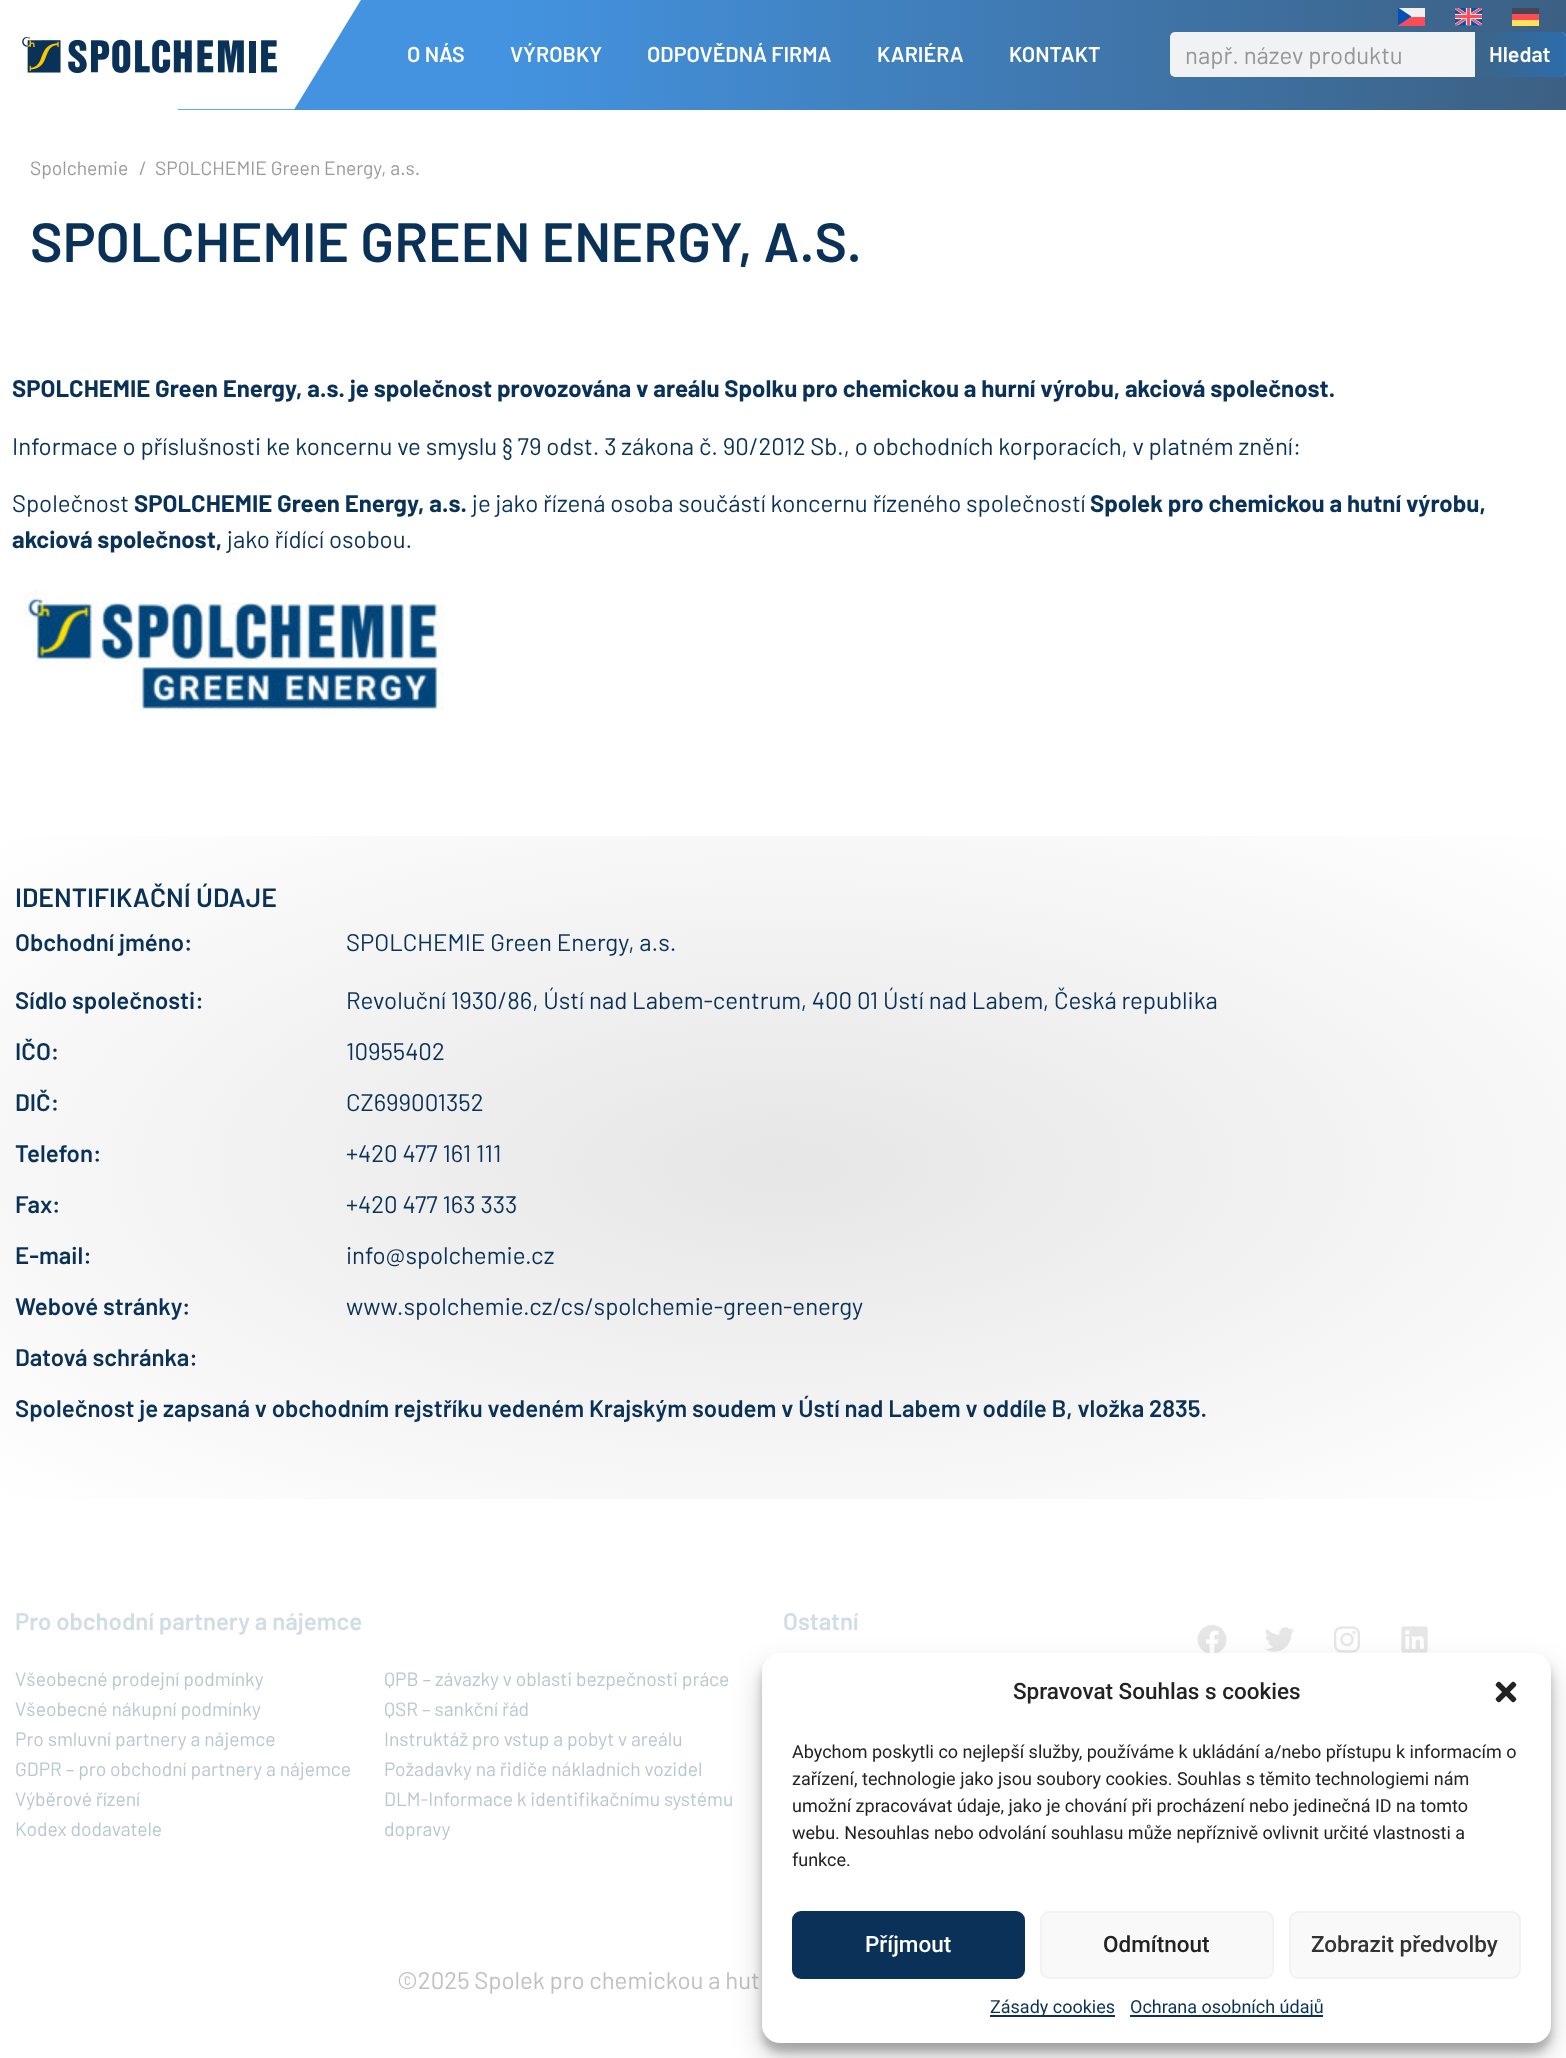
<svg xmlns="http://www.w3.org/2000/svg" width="1566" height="2058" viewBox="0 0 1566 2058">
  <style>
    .t1 { font: 600 21.5px Barlow; fill: #fff; }
    .t2 { font: 24px Barlow; fill: #93969a; }
    .t3 { font: 19.25px Barlow; fill: #999; }
    .t4 { font: 600 55.25px Barlow; fill: #0a3258; }
    .t5 { font: bold 24px Barlow; fill: #0a3258; }
    .t6 { font: 24px Barlow; fill: #0a3258; }
    .t7 { font: 600 26.5px Barlow; fill: #0a3258; }
    .t8 { font: 600 24px Barlow; fill: #0a3258; }
    .t9 { font: 600 24px Barlow; fill: #d1dce4; }
    .t10 { font: 19.25px Barlow; fill: #bac6ce; }
    .t11 { font: 24px Barlow; fill: #c0c0c0; }
    .t12 { font: 500 22.5px Roboto; fill: #222; }
    .t13 { font: 18px Roboto; fill: #222; }
    .t14 { font: 500 22.5px Roboto; fill: #fff; }
    .t15 { font: 500 22.5px Roboto; fill: #333; }
    .t16 { font: 18px Roboto; fill: #0a3258; }
  </style>
  <defs>
    <linearGradient id="g1" gradientUnits="userSpaceOnUse" x1="504" y1="-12" x2="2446" y2="-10"><stop offset="0" stop-color="#4393e0"/><stop offset="0.6" stop-color="#3b5b7a"/></linearGradient>
    <linearGradient id="g2" gradientUnits="userSpaceOnUse" x1="1475" y1="54" x2="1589" y2="54"><stop offset="0.08" stop-color="#3b658c"/><stop offset="1" stop-color="#286fb4"/></linearGradient>
    <radialGradient id="g3" gradientUnits="userSpaceOnUse" cx="0" cy="0" r="1" gradientTransform="matrix(1107 0 0 469 783 1167)"><stop offset="0" stop-color="#e6e6e6"/><stop offset="1" stop-color="#fff"/></radialGradient>
  </defs>
  <rect width="100%" height="100%" fill="#fff"/>
  <rect x="178" y="0" width="1388" height="110" fill="url(#g1)"/>
  <image x="22" y="0" width="339" height="110" href="images/1.png"/>
  <rect x="1398" y="8" width="27" height="9" fill="#f0f0f0"/>
  <rect x="1398" y="17" width="27" height="9" fill="#ff4b55"/>
  <path d="M1411.5 16.5L1398 7.5V25.5Z" fill="#0052b4"/>
  <image x="1455" y="8" width="27" height="18" href="images/2.png"/>
  <rect x="1512" y="8" width="27" height="6" fill="#464655"/>
  <rect x="1512" y="14" width="27" height="6" fill="#ff4b55"/>
  <rect x="1512" y="20" width="27" height="6" fill="#ffe15a"/>
  <text x="407" y="62" class="t1">O NÁS</text>
  <text x="510" y="62" class="t1">VÝROBKY</text>
  <text x="647" y="62" class="t1">ODPOVĚDNÁ FIRMA</text>
  <text x="877" y="62" class="t1">KARIÉRA</text>
  <text x="1009" y="62" class="t1">KONTAKT</text>
  <rect x="1170" y="32" width="396" height="45" rx="5" fill="#f1f2f3"/>
  <text x="1185" y="64" class="t2">např. název produktu</text>
  <path d="M1475 32H1561C1564 32 1566 34 1566 37V72C1566 75 1564 77 1561 77H1475Z" fill="url(#g2)"/>
  <text x="1489" y="62" class="t1">Hledat</text>
  <text x="30" y="175" class="t3">Spolchemie</text>
  <text x="139" y="175" class="t3">/</text>
  <text x="155" y="175" class="t3">SPOLCHEMIE Green Energy, a.s.</text>
  <text x="30" y="262" class="t4">SPOLCHEMIE GREEN ENERGY, A.S.</text>
  <text x="12" y="397" class="t5">SPOLCHEMIE Green Energy, a.s. je společnost provozována v areálu Spolku pro chemickou a hurní výrobu, akciová společnost.</text>
  <text x="12" y="455" class="t6">Informace o příslušnosti ke koncernu ve smyslu § 79 odst. 3 zákona č. 90/2012 Sb., o obchodních korporacích, v platném znění:</text>
  <text x="12" y="512" class="t6">Společnost</text>
  <text x="134" y="512" class="t5">SPOLCHEMIE Green Energy, a.s.</text>
  <text x="472" y="512" class="t6">je jako řízená osoba součástí koncernu řízeného společností</text>
  <text x="1090" y="512" class="t5">Spolek pro chemickou a hutní výrobu,</text>
  <text x="12" y="548" class="t5">akciová společnost,</text>
  <text x="227" y="548" class="t6">jako řídící osobou.</text>
  <image x="24" y="591" width="420" height="120" href="images/3.png"/>
  <rect x="0" y="836" width="1566" height="663" fill="url(#g3)"/>
  <text x="15" y="907" class="t7">IDENTIFIKAČNÍ ÚDAJE</text>
  <text x="15" y="951" class="t8">Obchodní jméno:</text>
  <text x="346" y="951" class="t6">SPOLCHEMIE Green Energy, a.s.</text>
  <text x="15" y="1009" class="t8">Sídlo společnosti:</text>
  <text x="346" y="1009" class="t6">Revoluční 1930/86, Ústí nad Labem-centrum, 400 01 Ústí nad Labem, Česká republika</text>
  <text x="15" y="1060" class="t8">IČO:</text>
  <text x="346" y="1060" class="t6">10955402</text>
  <text x="15" y="1111" class="t8">DIČ:</text>
  <text x="346" y="1111" class="t6">CZ699001352</text>
  <text x="15" y="1162" class="t8">Telefon:</text>
  <text x="346" y="1162" class="t6">+420 477 161 111</text>
  <text x="15" y="1213" class="t8">Fax:</text>
  <text x="346" y="1213" class="t6">+420 477 163 333</text>
  <text x="15" y="1264" class="t8">E-mail:</text>
  <text x="346" y="1264" class="t6">info@spolchemie.cz</text>
  <text x="15" y="1315" class="t8">Webové stránky:</text>
  <text x="346" y="1315" class="t6">www.spolchemie.cz/cs/spolchemie-green-energy</text>
  <text x="15" y="1366" class="t8">Datová schránka:</text>
  <text x="15" y="1417" class="t8">Společnost je zapsaná v obchodním rejstříku vedeném Krajským soudem v Ústí nad Labem v oddíle B, vložka 2835.</text>
  <text x="15" y="1630" class="t9">Pro obchodní partnery a nájemce</text>
  <text x="15" y="1686" class="t10">Všeobecné prodejní podmínky</text>
  <text x="15" y="1716" class="t10">Všeobecné nákupní podmínky</text>
  <text x="15" y="1746" class="t10">Pro smluvní partnery a nájemce</text>
  <text x="15" y="1776" class="t10">GDPR – pro obchodní partnery a nájemce</text>
  <text x="15" y="1806" class="t10">Výběrové řízení</text>
  <text x="15" y="1836" class="t10">Kodex dodavatele</text>
  <text x="384" y="1686" class="t10">QPB – závazky v oblasti bezpečnosti práce</text>
  <text x="384" y="1716" class="t10">QSR – sankční řád</text>
  <text x="384" y="1746" class="t10">Instruktáž pro vstup a pobyt v areálu</text>
  <text x="384" y="1776" class="t10">Požadavky na řidiče nákladních vozidel</text>
  <text x="384" y="1806" class="t10">DLM-Informace k identifikačnímu systému</text>
  <text x="384" y="1836" class="t10">dopravy</text>
  <text x="783" y="1630" class="t9">Ostatní</text>
  <image x="1197" y="1625" width="30" height="28" href="images/4.png"/>
  <image x="1265" y="1627" width="29" height="25" href="images/5.png"/>
  <image x="1334" y="1626" width="26" height="27" href="images/6.png"/>
  <image x="1401" y="1626" width="27" height="27" href="images/7.png"/>
  <text x="397" y="1989" class="t11">©2025 Spolek pro chemickou a hut</text>
  <rect x="762" y="1662" width="789" height="390" rx="18" fill="#0000003b" filter="blur(4.5px)"/>
  <rect x="762" y="1668" width="789" height="390" rx="18" fill="#00000030" filter="blur(15px)"/>
  <rect x="762" y="1653" width="789" height="390" rx="18" fill="#fff"/>
  <text x="1013" y="1699" class="t12">Spravovat Souhlas s cookies</text>
  <image x="1495" y="1681" width="22" height="22" href="images/8.png"/>
  <text x="792" y="1758" class="t13">Abychom poskytli co nejlepší služby, používáme k ukládání a/nebo přístupu k informacím o</text>
  <text x="792" y="1785" class="t13">zařízení, technologie jako jsou soubory cookies. Souhlas s těmito technologiemi nám</text>
  <text x="792" y="1812" class="t13">umožní zpracovávat údaje, jako je chování při procházení nebo jedinečná ID na tomto</text>
  <text x="792" y="1839" class="t13">webu. Nesouhlas nebo odvolání souhlasu může nepříznivě ovlivnit určité vlastnosti a</text>
  <text x="792" y="1866" class="t13">funkce.</text>
  <rect x="793" y="1912" width="231" height="66" rx="8" fill="#0a3258" stroke="#0a3258" stroke-width="2"/>
  <text x="865" y="1952" class="t14">Příjmout</text>
  <rect x="1041" y="1912" width="232" height="66" rx="8" fill="#f9f9f9" stroke="#f2f2f2" stroke-width="2"/>
  <text x="1103" y="1952" class="t12">Odmítnout</text>
  <rect x="1290" y="1912" width="230" height="66" rx="8" fill="#f9f9f9" stroke="#f2f2f2" stroke-width="2"/>
  <text x="1311" y="1952" class="t15">Zobrazit předvolby</text>
  <rect x="990" y="2015" width="125" height="2" fill="#0a3258"/>
  <text x="990" y="2013" class="t16">Zásady cookies</text>
  <rect x="1130" y="2015" width="193" height="2" fill="#0a3258"/>
  <text x="1130" y="2013" class="t16">Ochrana osobních údajů</text>
</svg>
